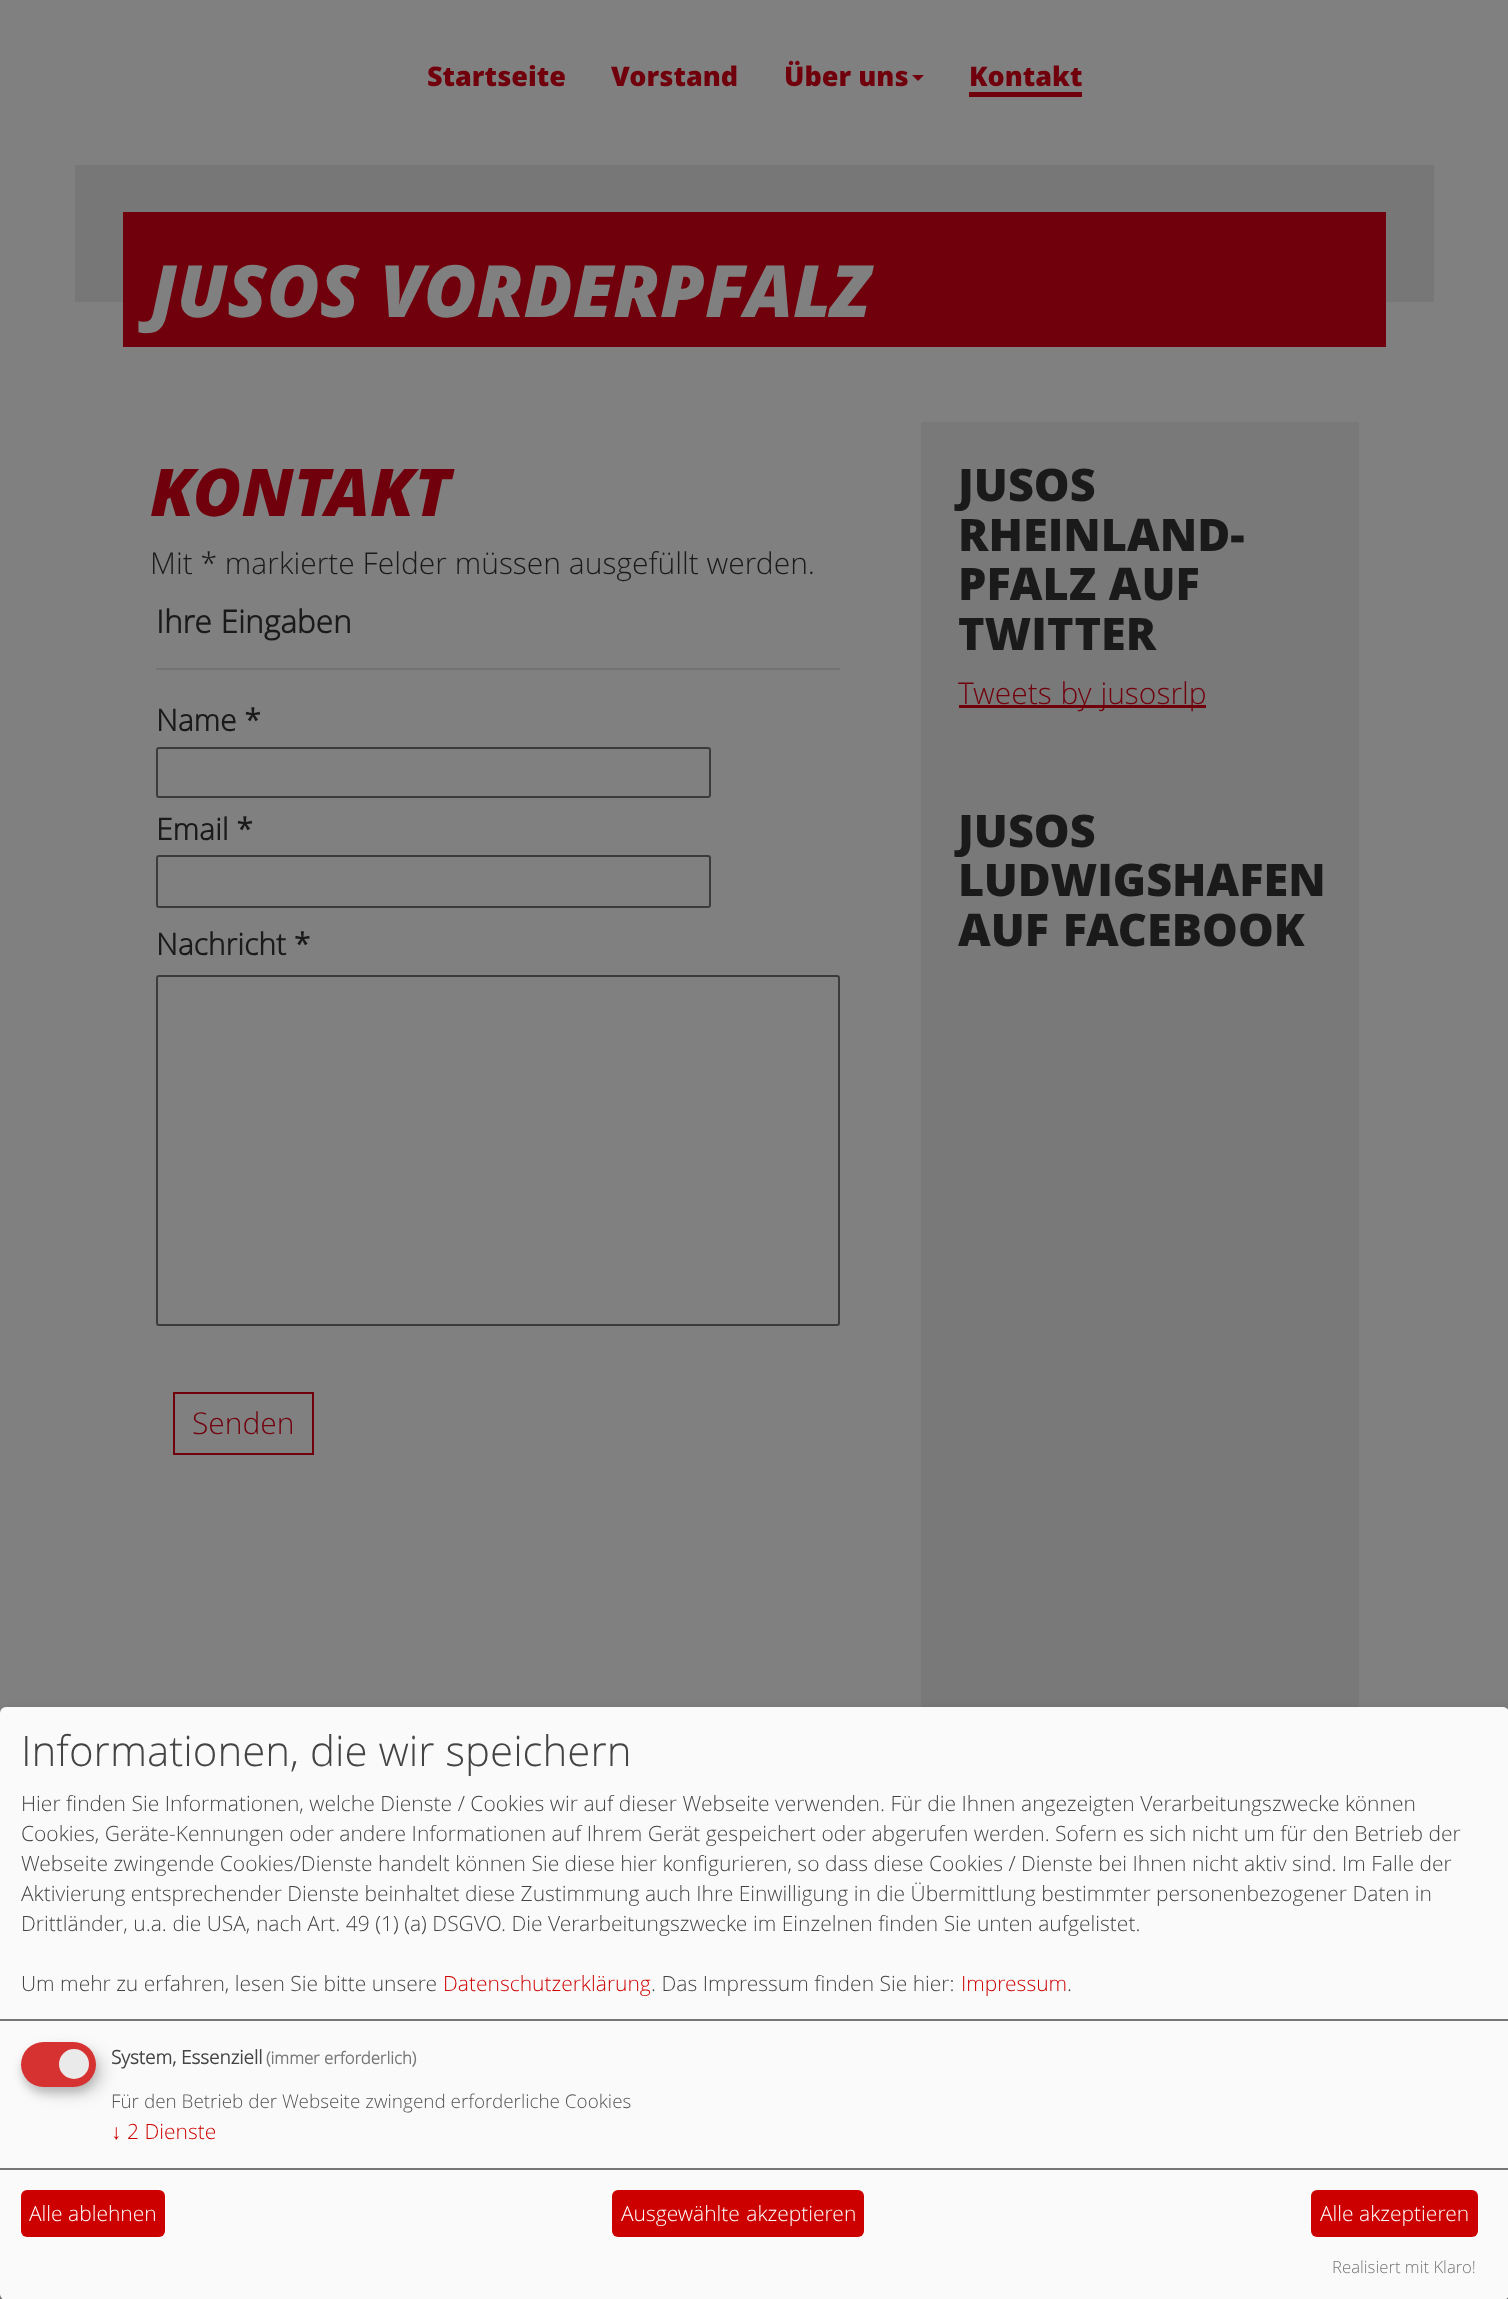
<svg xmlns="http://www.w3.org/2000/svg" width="1508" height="2299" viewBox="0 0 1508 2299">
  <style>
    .t1 { font: 800 27px Open Sans; fill: #71000d; }
    .t2 { font: italic 800 72px Open Sans; fill: #808080; }
    .t3 { font: italic 800 66px Open Sans; fill: #71000d; }
    .t4 { font: 300 30px Open Sans; fill: #1a1a1a; }
    .t5 { font: bold 31.5px Open Sans; fill: #1a1a1a; }
    .t6 { font: bold 30px Open Sans; fill: #1a1a1a; }
    .t7 { font: 300 30px Open Sans; fill: #71000d; }
    .t8 { font: 800 45px Open Sans; fill: #1a1a1a; }
    .t9 { font: 300 42px Open Sans; fill: #444; }
    .t10 { font: 300 21px Open Sans; fill: #444; }
    .t11 { font: 300 21px Open Sans; fill: #cd0000; }
    .t12 { font: bold 18.9px Open Sans; fill: #444; }
    .t13 { font: bold 16.75px Open Sans; fill: #777; }
    .t14 { font: 300 18.9px Open Sans; fill: #555; }
    .t15 { font: 21px Liberation Sans; fill: #cd0000; }
    .t16 { font: 300 21px Open Sans; fill: #fff; }
    .t17 { font: 300 16.75px Open Sans; fill: #777; }
  </style>
  <rect width="100%" height="100%" fill="#808080"/>
  <text x="427" y="86" class="t1">Startseite</text>
  <text x="611" y="86" class="t1">Vorstand</text>
  <text x="784" y="86" class="t1">Über uns</text>
  <path d="M912 75H924L918 81Z" fill="#71000d"/>
  <rect x="969" y="92" width="113" height="5" fill="#71000d"/>
  <text x="969" y="86" class="t1">Kontakt</text>
  <rect x="75" y="165" width="1359" height="137" fill="#777"/>
  <rect x="123" y="212" width="1263" height="135" fill="#71000d"/>
  <text x="150" y="317" word-spacing="2" class="t2">JUSOS VORDERPFALZ</text>
  <text x="150" y="516" class="t3">KONTAKT</text>
  <text x="150" y="574" class="t4">Mit * markierte Felder müssen ausgefüllt werden.</text>
  <rect x="156" y="668" width="684" height="2" fill="#737373"/>
  <text x="156" y="633" word-spacing="1" class="t5">Ihre Eingaben</text>
  <text x="156" y="731" class="t6">Name *</text>
  <rect x="157" y="748" width="553" height="49" rx="2" fill="none" stroke="#3b3b3b" stroke-width="2"/>
  <text x="156" y="840" class="t6">Email *</text>
  <rect x="157" y="856" width="553" height="51" rx="2" fill="none" stroke="#3b3b3b" stroke-width="2"/>
  <text x="156" y="955" class="t6">Nachricht *</text>
  <rect x="157" y="976" width="682" height="349" rx="2" fill="none" stroke="#3b3b3b" stroke-width="2"/>
  <rect x="174" y="1393" width="139" height="61" fill="none" stroke="#71000d" stroke-width="2"/>
  <text x="192" y="1434" class="t7">Senden</text>
  <rect x="921" y="422" width="438" height="1285" fill="#797979"/>
  <text x="958" y="501" class="t8">JUSOS</text>
  <text x="958" y="551" class="t8">RHEINLAND-</text>
  <text x="958" y="600" word-spacing="1" class="t8">PFALZ AUF</text>
  <text x="958" y="650" class="t8">TWITTER</text>
  <rect x="959" y="705" width="247" height="3" fill="#71000d"/>
  <text x="958" y="704" word-spacing="1" class="t7">Tweets by jusosrlp</text>
  <text x="958" y="847" class="t8">JUSOS</text>
  <text x="958" y="896" class="t8">LUDWIGSHAFEN</text>
  <text x="958" y="946" word-spacing="2" class="t8">AUF FACEBOOK</text>
  <rect x="8" y="1715" width="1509" height="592" rx="6" fill="#00000030" filter="blur(7.5px)"/>
  <rect x="0" y="1713" width="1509" height="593" rx="6" fill="#00000033" filter="blur(4.5px)"/>
  <rect x="0" y="1707" width="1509" height="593" rx="6" fill="#fafafa"/>
  <rect x="0" y="2019" width="1508" height="2" fill="#777"/>
  <text x="21" y="1766" class="t9">Informationen, die wir speichern</text>
  <text x="21" y="1811" word-spacing="0.1" class="t10">Hier finden Sie Informationen, welche Dienste / Cookies wir auf dieser Webseite verwenden. Für die Ihnen angezeigten Verarbeitungszwecke können</text>
  <text x="21" y="1841" class="t10">Cookies, Geräte-Kennungen oder andere Informationen auf Ihrem Gerät gespeichert oder abgerufen werden. Sofern es sich nicht um für den Betrieb der</text>
  <text x="21" y="1871" class="t10">Webseite zwingende Cookies/Dienste handelt können Sie diese hier konfigurieren, so dass diese Cookies / Dienste bei Ihnen nicht aktiv sind. Im Falle der</text>
  <text x="21" y="1901" class="t10">Aktivierung entsprechender Dienste beinhaltet diese Zustimmung auch Ihre Einwilligung in die Übermittlung bestimmter personenbezogener Daten in</text>
  <text x="21" y="1931" word-spacing="0.1" class="t10">Drittländer, u.a. die USA, nach Art. 49 (1) (a) DSGVO. Die Verarbeitungszwecke im Einzelnen finden Sie unten aufgelistet.</text>
  <text x="21" y="1991" class="t10">Um mehr zu erfahren, lesen Sie bitte unsere</text>
  <text x="443" y="1991" class="t11">Datenschutzerklärung</text>
  <text x="651" y="1991" class="t10">. Das Impressum finden Sie hier:</text>
  <text x="961" y="1991" class="t11">Impressum</text>
  <text x="1067" y="1991" class="t10">.</text>
  <rect x="29" y="2049" width="75" height="45" rx="22.5" fill="#00000026" filter="blur(7.5px)"/>
  <rect x="21" y="2048" width="75" height="45" rx="22.5" fill="#32323233" filter="blur(4.5px)"/>
  <rect x="21" y="2042" width="75" height="45" rx="22.5" fill="#d63232"/>
  <circle cx="74" cy="2064" r="15" fill="#eaeaea"/>
  <text x="111" y="2064" class="t12">System, Essenziell</text>
  <text x="266" y="2064" class="t13">(immer erforderlich)</text>
  <text x="111" y="2108" class="t14">Für den Betrieb der Webseite zwingend erforderliche Cookies</text>
  <text x="111" y="2139" class="t15">↓</text>
  <text x="127" y="2139" class="t11">2 Dienste</text>
  <rect x="0" y="2168" width="1508" height="2" fill="#777"/>
  <rect x="21" y="2190" width="144" height="47" rx="6" fill="#cd0000"/>
  <text x="29" y="2221" class="t16">Alle ablehnen</text>
  <rect x="612" y="2190" width="252" height="47" rx="6" fill="#cd0000"/>
  <text x="621" y="2221" word-spacing="1" class="t16">Ausgewählte akzeptieren</text>
  <rect x="1311" y="2190" width="167" height="47" rx="6" fill="#cd0000"/>
  <text x="1320" y="2221" class="t16">Alle akzeptieren</text>
  <text x="1332" y="2273" class="t17">Realisiert mit Klaro!</text>
</svg>
